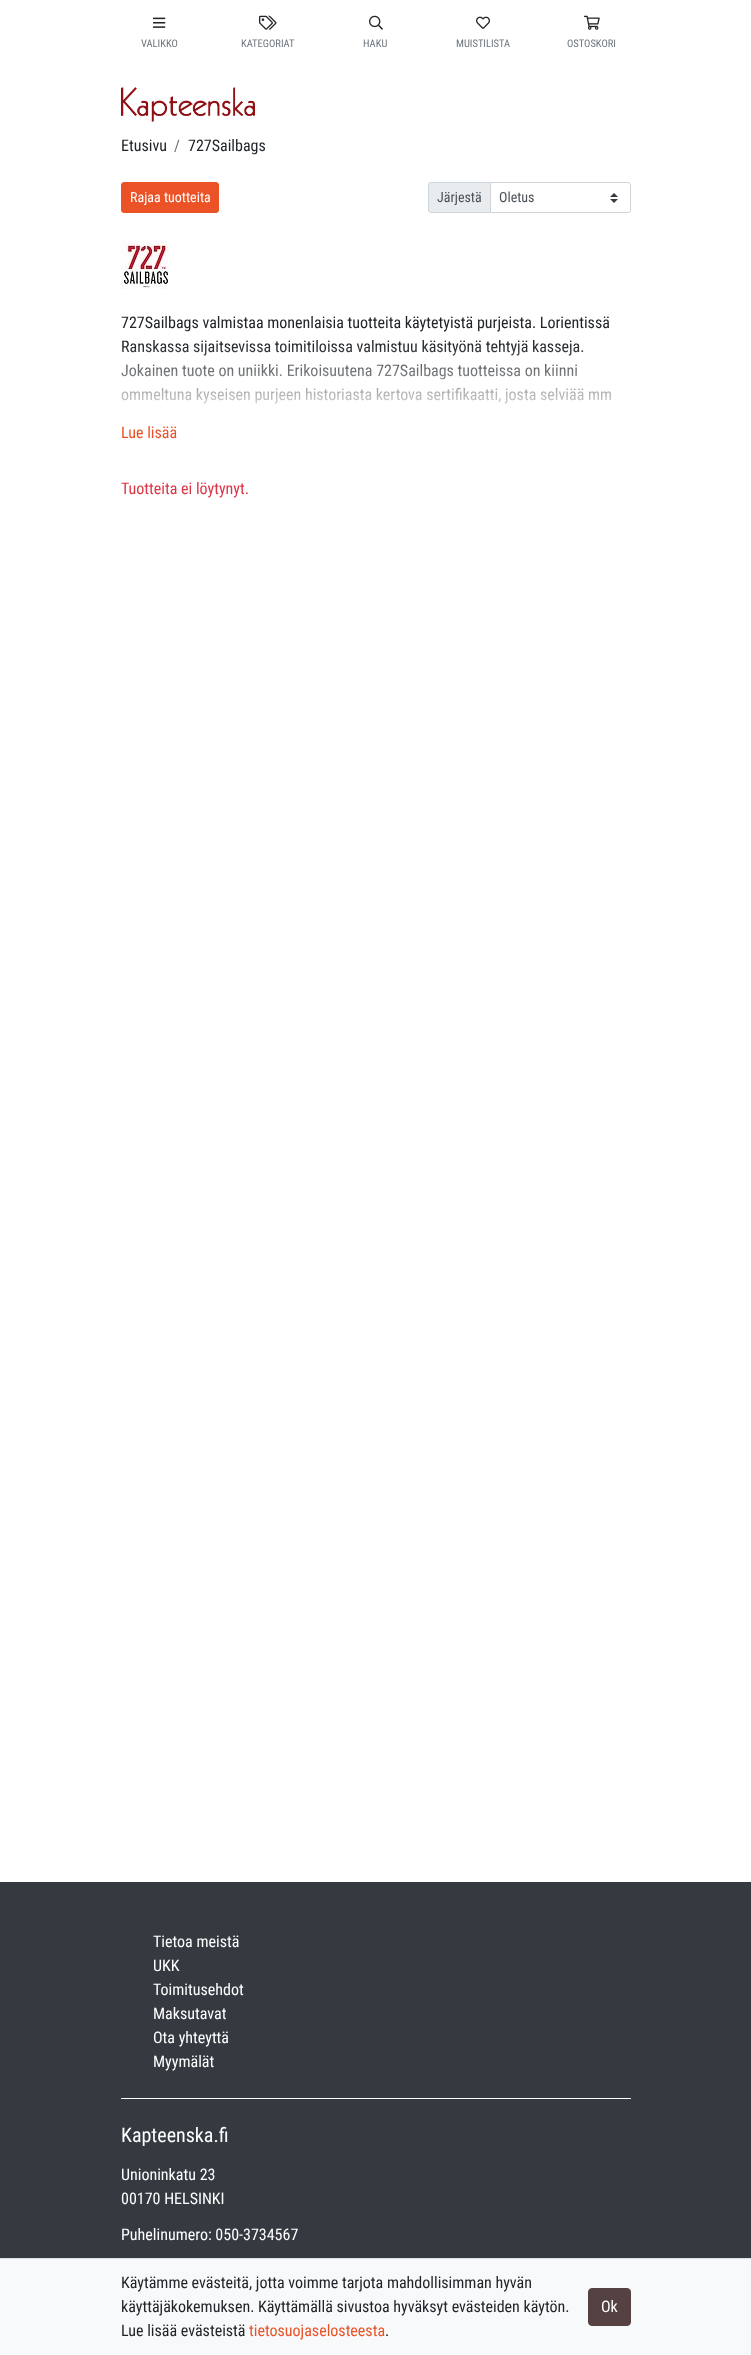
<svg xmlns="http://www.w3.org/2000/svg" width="751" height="2355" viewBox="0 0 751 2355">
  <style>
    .t1 { font: 10.5px Roboto Condensed; fill: #6c757d; }
    .t2 { font: 16px Roboto Condensed; fill: #212529; }
    .t3 { font: 16px Roboto Condensed; fill: #6c757d; }
    .t4 { font: 14px Roboto Condensed; fill: #fff; }
    .t5 { font: 14px Roboto Condensed; fill: #495057; }
    .t6 { font: 16px Roboto Condensed; fill: #eb5226; }
    .t7 { font: 16px Roboto Condensed; fill: #dc3545; }
    .t8 { font: 16px Roboto Condensed; fill: #fff; }
    .t9 { font: 20px Roboto Condensed; fill: #fff; }
  </style>
  <defs>
    <linearGradient id="g1" gradientUnits="userSpaceOnUse" x1="376" y1="344" x2="376" y2="421"><stop offset="0" stop-color="#fff" stop-opacity="0"/><stop offset="1" stop-color="#fff"/></linearGradient>
  </defs>
  <rect width="100%" height="100%" fill="#fff"/>
  <image x="153" y="17" width="13" height="11" href="images/1.png"/>
  <text x="141" y="47" class="t1">VALIKKO</text>
  <image x="259" y="15" width="18" height="15" href="images/2.png"/>
  <text x="241" y="47" class="t1">KATEGORIAT</text>
  <image x="369" y="15" width="14" height="15" href="images/3.png"/>
  <text x="363" y="47" class="t1">HAKU</text>
  <image x="476" y="16" width="14" height="13" href="images/4.png"/>
  <text x="456" y="47" class="t1">MUISTILISTA</text>
  <image x="584" y="15" width="16" height="15" href="images/5.png"/>
  <text x="567" y="47" class="t1">OSTOSKORI</text>
  <image x="121" y="87" width="134" height="35" href="images/6.png"/>
  <text x="121" y="151" class="t2">Etusivu</text>
  <text x="174" y="151" class="t3">/</text>
  <text x="188" y="151" class="t2">727Sailbags</text>
  <rect x="121.5" y="182.5" width="97" height="30" rx="2.5" fill="#eb5226" stroke="#eb5226"/>
  <text x="130" y="202" class="t4">Rajaa tuotteita</text>
  <path d="M431 182.5H490.5V212.5H431C429.5 212.5 428.5 211.5 428.5 210V185C428.5 183.5 429.5 182.5 431 182.5Z" fill="#e9ecef" stroke="#ced4da"/>
  <text x="437" y="202" class="t5">Järjestä</text>
  <path d="M490 182H628C629.5 182 631 183.5 631 185V210C631 211.5 629.5 213 628 213H490Z" fill="#fff"/>
  <image x="610" y="193" width="8" height="10" href="images/7.png"/>
  <path d="M490.5 182.5H628C629.5 182.5 630.5 183.5 630.5 185V210C630.5 211.5 629.5 212.5 628 212.5H490.5Z" fill="none" stroke="#ced4da"/>
  <text x="499" y="202" class="t5">Oletus</text>
  <image x="121" y="241" width="48" height="48" href="images/8.png"/>
  <text x="121" y="328" class="t2">727Sailbags valmistaa monenlaisia tuotteita käytetyistä purjeista. Lorientissä</text>
  <text x="121" y="352" class="t2">Ranskassa sijaitsevissa toimitiloissa valmistuu käsityönä tehtyjä kasseja.</text>
  <text x="121" y="376" class="t2">Jokainen tuote on uniikki. Erikoisuutena 727Sailbags tuotteissa on kiinni</text>
  <text x="121" y="400" class="t2">ommeltuna kyseisen purjeen historiasta kertova sertifikaatti, josta selviää mm</text>
  <rect x="121" y="346" width="490" height="58" fill="url(#g1)"/>
  <text x="121" y="438" class="t6">Lue lisää</text>
  <text x="121" y="494" class="t7">Tuotteita ei löytynyt.</text>
  <rect x="0" y="1882" width="751" height="376" fill="#343a40"/>
  <text x="153" y="1947" class="t8">Tietoa meistä</text>
  <text x="153" y="1971" class="t8">UKK</text>
  <text x="153" y="1995" class="t8">Toimitusehdot</text>
  <text x="153" y="2019" class="t8">Maksutavat</text>
  <text x="153" y="2043" class="t8">Ota yhteyttä</text>
  <text x="153" y="2067" class="t8">Myymälät</text>
  <rect x="121" y="2098" width="510" height="1" fill="#fff"/>
  <text x="121" y="2142" class="t9">Kapteenska.fi</text>
  <text x="121" y="2180" class="t8">Unioninkatu 23</text>
  <text x="121" y="2204" class="t8">00170 HELSINKI</text>
  <text x="121" y="2240" class="t8">Puhelinumero: 050-3734567</text>
  <rect x="0" y="2259" width="751" height="96" fill="#f8f9fa"/>
  <rect x="0" y="2258" width="751" height="1" fill="#dee2e6"/>
  <text x="121" y="2288" class="t2">Käytämme evästeitä, jotta voimme tarjota mahdollisimman hyvän</text>
  <text x="121" y="2312" class="t2">käyttäjäkokemuksen. Käyttämällä sivustoa hyväksyt evästeiden käytön.</text>
  <text x="121" y="2336" class="t2">Lue lisää evästeistä</text>
  <text x="249" y="2336" class="t6">tietosuojaselosteesta</text>
  <text x="385" y="2336" class="t2">.</text>
  <rect x="588.5" y="2288.5" width="42" height="37" rx="3.5" fill="#554142" stroke="#554142"/>
  <text x="601" y="2312" class="t8">Ok</text>
</svg>
